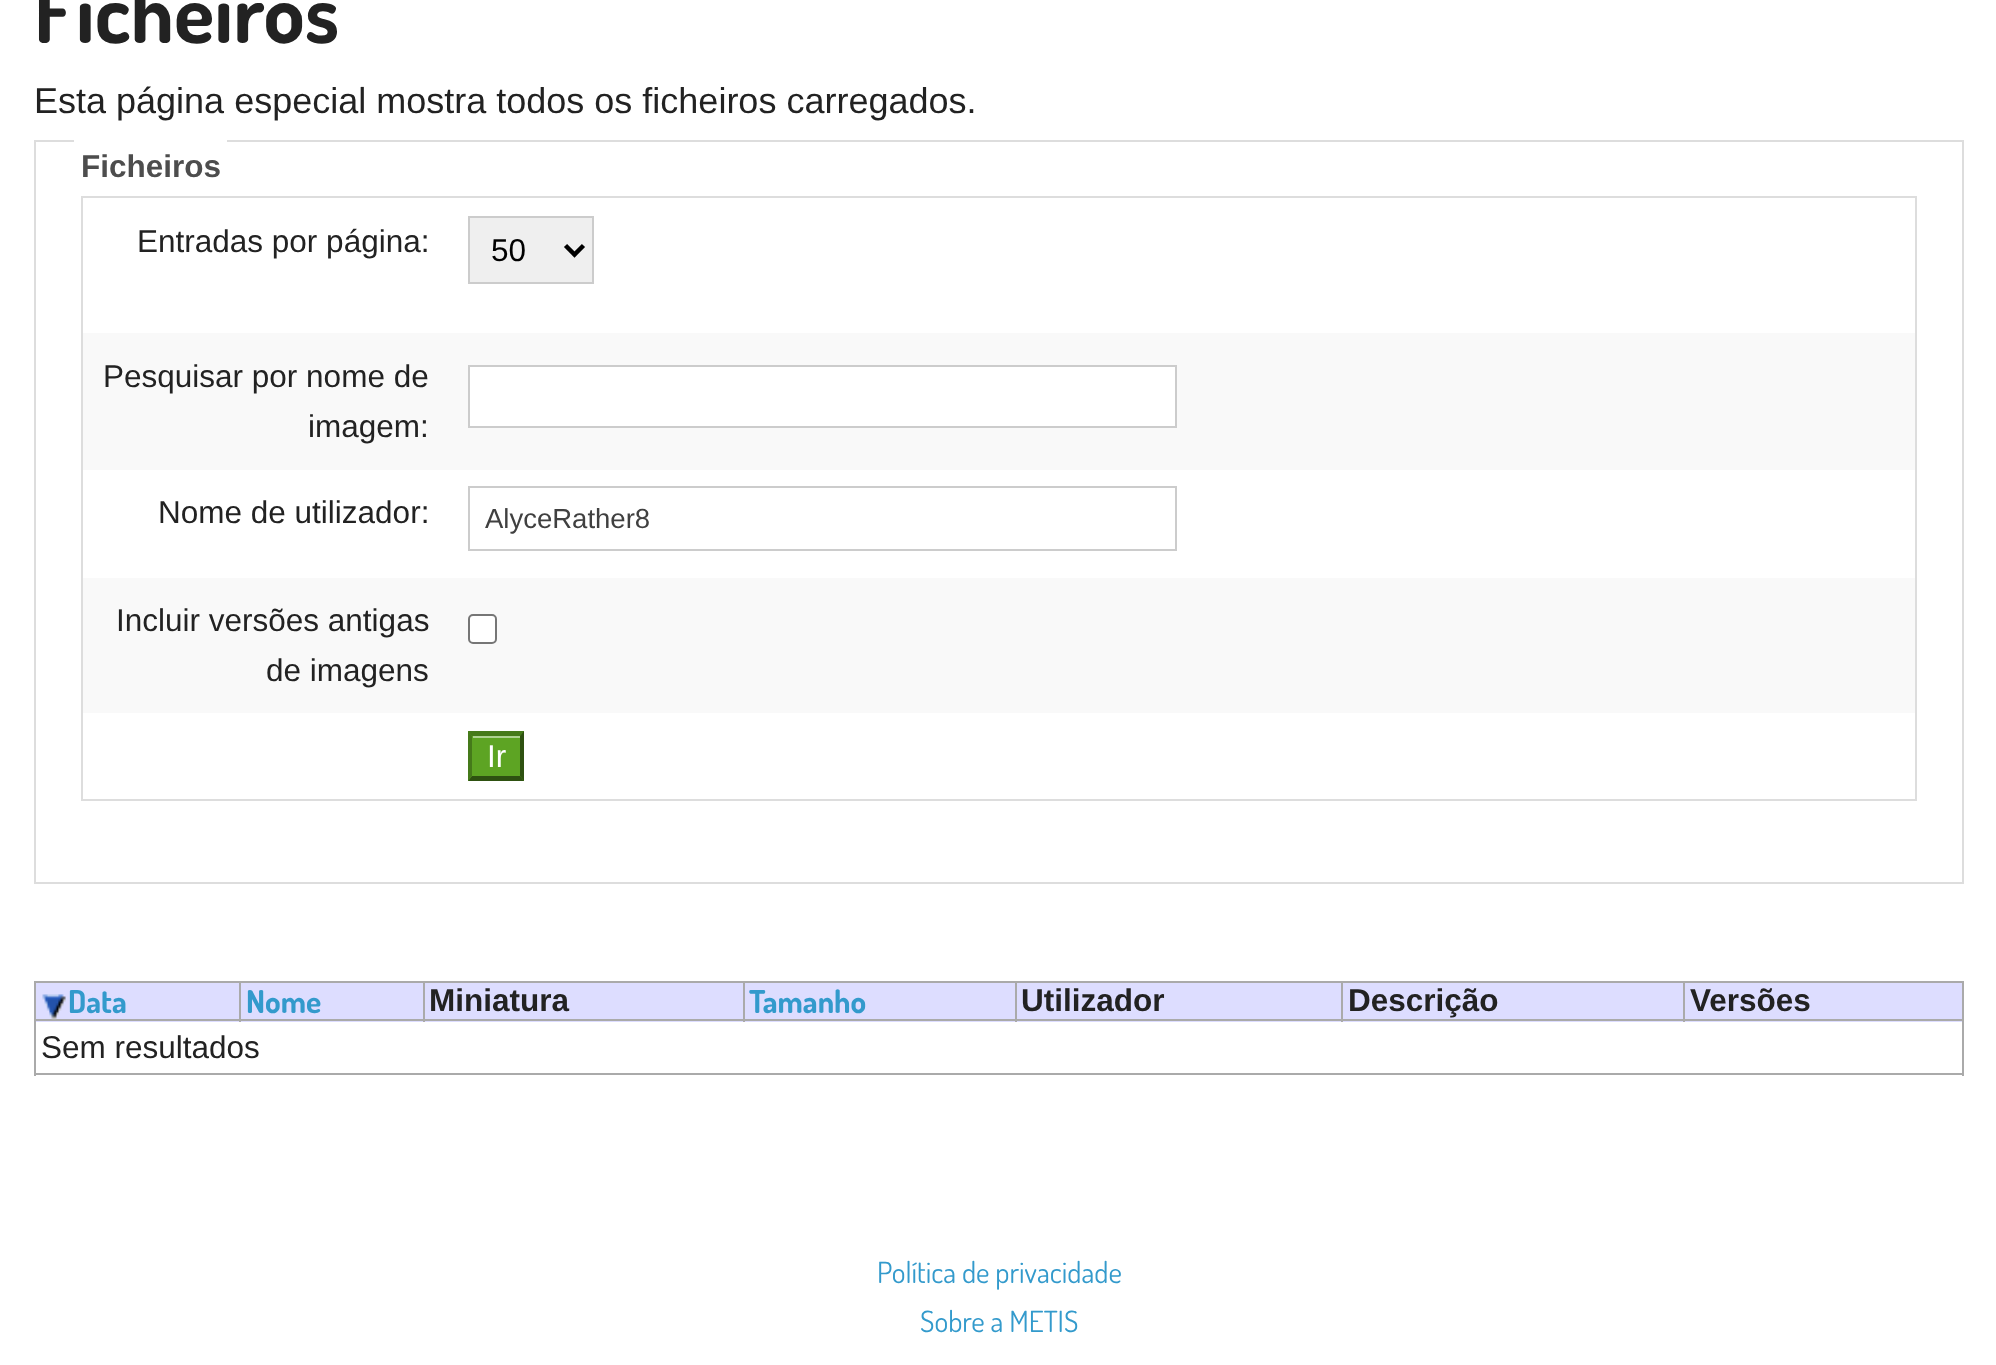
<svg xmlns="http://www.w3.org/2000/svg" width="1996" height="1365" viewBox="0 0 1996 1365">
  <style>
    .t1 { font: bold 83px Dosis; fill: #222; }
    .t2 { font: 36px Liberation Sans; fill: #222; }
    .t3 { font: bold 31.5px Liberation Sans; fill: #4d4d4d; }
    .t4 { font: 31.5px Liberation Sans; fill: #222; }
    .t5 { font: 31.5px Liberation Sans; fill: #000; }
    .t6 { font: 27.5px Liberation Sans; fill: #404040; }
    .t7 { font: 31.5px Liberation Sans; fill: #fff; }
    .t8 { font: bold 31.5px Dosis; fill: #339acc; }
    .t9 { font: bold 31.5px Liberation Sans; fill: #222; }
    .t10 { font: 29.25px Dosis; fill: #339acc; }
  </style>
  <rect width="100%" height="100%" fill="#fff"/>
  <text x="34" y="43" class="t1">Ficheiros</text>
  <text x="34" y="113" class="t2">Esta página especial mostra todos os ficheiros carregados.</text>
  <rect x="35" y="141" width="1928" height="742" fill="none" stroke="#ddd" stroke-width="2"/>
  <rect x="74" y="140" width="153" height="2" fill="#fff"/>
  <text x="81" y="177" class="t3">Ficheiros</text>
  <rect x="81" y="196" width="1836" height="2" fill="#ddd"/>
  <rect x="1915" y="196" width="2" height="605" fill="#ddd"/>
  <rect x="81" y="799" width="1836" height="2" fill="#ddd"/>
  <rect x="81" y="196" width="2" height="605" fill="#ddd"/>
  <text x="137" y="252" class="t4">Entradas por página:</text>
  <rect x="469" y="217" width="124" height="66" fill="#efefef" stroke="#ccc" stroke-width="2"/>
  <path d="M565.5 245.5L574.5 254.5L583.5 245.5" fill="none" stroke="#000" stroke-width="4.5"/>
  <text x="491" y="261" class="t5">50</text>
  <rect x="83" y="333" width="1832" height="137" fill="#f9f9f9"/>
  <text x="103" y="387" class="t4">Pesquisar por nome de</text>
  <text x="308" y="437" class="t4">imagem:</text>
  <rect x="469" y="366" width="707" height="61" fill="#fff" stroke="#ccc" stroke-width="2"/>
  <text x="158" y="523" class="t4">Nome de utilizador:</text>
  <rect x="469" y="487" width="707" height="63" fill="none" stroke="#ccc" stroke-width="2"/>
  <text x="485" y="528" class="t6">AlyceRather8</text>
  <rect x="83" y="578" width="1832" height="135" fill="#f9f9f9"/>
  <text x="116" y="631" class="t4">Incluir versões antigas</text>
  <text x="266" y="681" class="t4">de imagens</text>
  <rect x="469" y="615" width="27" height="28" rx="4" fill="#fff" stroke="#767676" stroke-width="2"/>
  <rect x="468" y="731" width="56" height="50" fill="#5da423"/>
  <rect x="473" y="736" width="47" height="2" fill="#aed291"/>
  <path d="M468 731H524L520 736H472Z" fill="#457a1a"/>
  <path d="M524 731V781L520 776V736Z" fill="#2e5111"/>
  <path d="M524 781H468L472 776H520Z" fill="#2e5111"/>
  <path d="M468 781V731L472 736V776Z" fill="#457a1a"/>
  <text x="487" y="767" class="t7">Ir</text>
  <rect x="36" y="983" width="203" height="39" fill="#ddf"/>
  <rect x="1683" y="981" width="281" height="2" fill="#aaa"/>
  <rect x="241" y="983" width="182" height="39" fill="#ddf"/>
  <rect x="425" y="983" width="318" height="39" fill="#ddf"/>
  <rect x="745" y="983" width="270" height="39" fill="#ddf"/>
  <rect x="1017" y="983" width="324" height="39" fill="#ddf"/>
  <rect x="1343" y="983" width="340" height="39" fill="#ddf"/>
  <rect x="1685" y="983" width="277" height="39" fill="#ddf"/>
  <rect x="34" y="1019" width="1930" height="2" fill="#aaa"/>
  <rect x="1683" y="981" width="2" height="41" fill="#aaa"/>
  <rect x="1341" y="981" width="344" height="2" fill="#aaa"/>
  <rect x="1341" y="981" width="2" height="41" fill="#aaa"/>
  <rect x="1015" y="981" width="328" height="2" fill="#aaa"/>
  <rect x="1015" y="981" width="2" height="41" fill="#aaa"/>
  <rect x="743" y="981" width="274" height="2" fill="#aaa"/>
  <rect x="743" y="981" width="2" height="41" fill="#aaa"/>
  <rect x="423" y="981" width="322" height="2" fill="#aaa"/>
  <rect x="423" y="981" width="2" height="41" fill="#aaa"/>
  <rect x="239" y="981" width="186" height="2" fill="#aaa"/>
  <rect x="239" y="981" width="2" height="41" fill="#aaa"/>
  <rect x="34" y="981" width="207" height="2" fill="#aaa"/>
  <rect x="1962" y="1019" width="2" height="57" fill="#aaa"/>
  <rect x="34" y="1073" width="1930" height="2" fill="#aaa"/>
  <rect x="34" y="1019" width="2" height="57" fill="#aaa"/>
  <rect x="34" y="981" width="2" height="41" fill="#aaa"/>
  <image x="42" y="994" width="24" height="26" href="images/1.png"/>
  <text x="68" y="1013" class="t8">Data</text>
  <text x="246" y="1013" class="t8">Nome</text>
  <text x="429" y="1011" class="t9">Miniatura</text>
  <text x="749" y="1013" class="t8">Tamanho</text>
  <text x="1021" y="1011" class="t9">Utilizador</text>
  <text x="1348" y="1011" class="t9">Descrição</text>
  <rect x="1962" y="981" width="2" height="41" fill="#aaa"/>
  <text x="1690" y="1011" class="t9">Versões</text>
  <text x="41" y="1058" class="t4">Sem resultados</text>
  <text x="877" y="1283" class="t10">Política de privacidade</text>
  <text x="920" y="1332" class="t10">Sobre a METIS</text>
</svg>
